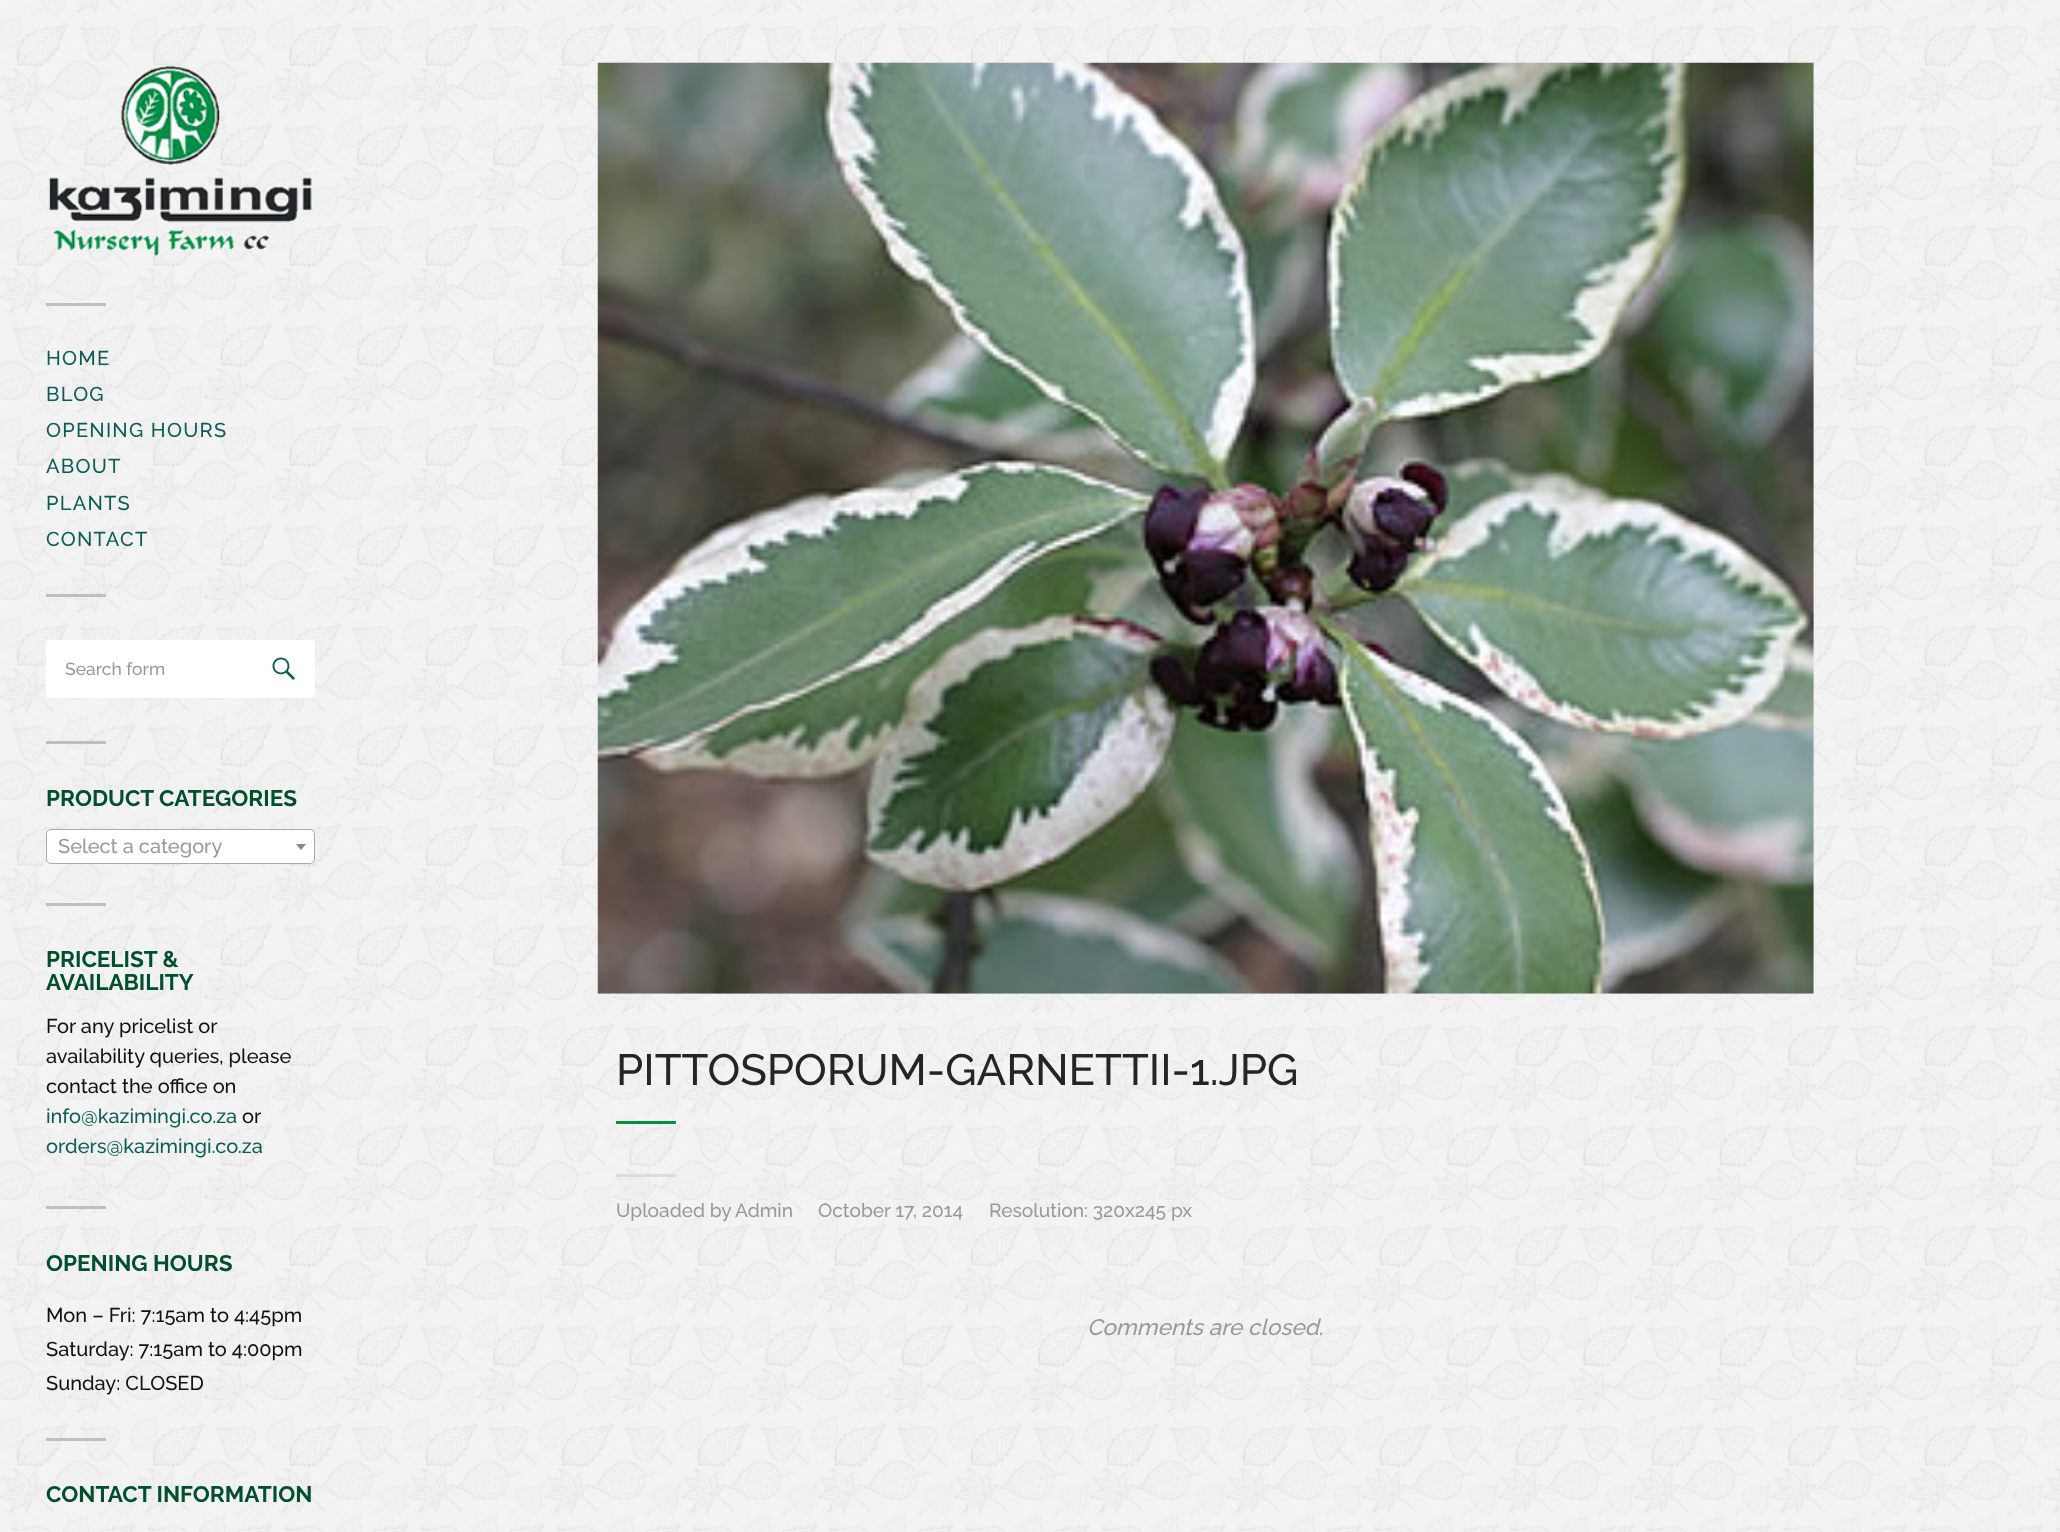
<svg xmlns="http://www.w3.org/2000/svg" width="2060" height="1532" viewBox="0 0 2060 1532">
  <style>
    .t1 { font: 500 20px Raleway; letter-spacing: 1.25px; fill: #0d5d56; }
    .t2 { font: 500 17.5px Raleway; fill: #999; }
    .t3 { font: bold 22.5px Raleway; fill: #004f2d; }
    .t4 { font: 500 20px Raleway; fill: #999; }
    .t5 { font: 500 20px Raleway; fill: #111; }
    .t6 { font: 500 20px Raleway; fill: #0d5d56; }
    .t7 { font: 500 43.75px Raleway; fill: #222629; }
    .t8 { font: 500 19.1px Raleway; fill: #999; }
    .t9 { font: italic 500 22.5px Raleway; fill: #999; }
  </style>
  <rect width="100%" height="100%" fill="#fff"/>
  <image x="0" y="0" width="2060" height="1532" href="images/1.png"/>
  <image x="48" y="65" width="265" height="192" href="images/2.png"/>
  <rect x="46" y="303" width="60" height="3" fill="#bfc1b9"/>
  <text x="46" y="365" class="t1">HOME</text>
  <text x="46" y="401" class="t1">BLOG</text>
  <text x="46" y="437" class="t1">OPENING HOURS</text>
  <text x="46" y="473" class="t1">ABOUT</text>
  <text x="46" y="510" class="t1">PLANTS</text>
  <text x="46" y="546" class="t1">CONTACT</text>
  <rect x="46" y="594" width="60" height="3" fill="#bfc1b9"/>
  <rect x="46" y="640" width="269" height="58" rx="4" fill="#fff"/>
  <text x="65" y="675" class="t2">Search form</text>
  <image x="272" y="657" width="23" height="23" href="images/3.png"/>
  <rect x="46" y="741" width="60" height="3" fill="#bfc1b9"/>
  <text x="46" y="806" class="t3">PRODUCT CATEGORIES</text>
  <rect x="46.5" y="829.5" width="268" height="34" rx="4.5" fill="#fff" stroke="#aaa"/>
  <text x="58" y="853" class="t4">Select a category</text>
  <path d="M296 844H306L301 850Z" fill="#888"/>
  <rect x="46" y="903" width="60" height="3" fill="#bfc1b9"/>
  <text x="46" y="967" class="t3">PRICELIST &amp;</text>
  <text x="46" y="990" class="t3">AVAILABILITY</text>
  <text x="46" y="1033" class="t5">For any pricelist or</text>
  <text x="46" y="1063" class="t5">availability queries, please</text>
  <text x="46" y="1093" class="t5">contact the office on</text>
  <text x="46" y="1123" class="t6">info@kazimingi.co.za</text>
  <text x="242" y="1123" class="t5">or</text>
  <text x="46" y="1153" class="t6">orders@kazimingi.co.za</text>
  <rect x="46" y="1206" width="60" height="3" fill="#bfc1b9"/>
  <text x="46" y="1271" class="t3">OPENING HOURS</text>
  <rect x="46" y="1326" width="269" height="1" fill="#eee"/>
  <text x="46" y="1322" class="t5">Mon – Fri: 7:15am to 4:45pm</text>
  <rect x="46" y="1360" width="269" height="1" fill="#eee"/>
  <text x="46" y="1356" class="t5">Saturday: 7:15am to 4:00pm</text>
  <text x="46" y="1390" class="t5">Sunday: CLOSED</text>
  <rect x="46" y="1438" width="60" height="3" fill="#bfc1b9"/>
  <text x="46" y="1502" class="t3">CONTACT INFORMATION</text>
  <image x="597" y="62" width="1217" height="932" href="images/4.png"/>
  <text x="616" y="1085" class="t7">PITTOSPORUM-GARNETTII-1.JPG</text>
  <rect x="616" y="1121" width="60" height="3" fill="#009141"/>
  <rect x="616" y="1174" width="60" height="3" fill="#ddd"/>
  <text x="616" y="1217" class="t8">Uploaded by</text>
  <text x="735" y="1217" class="t8">Admin</text>
  <text x="818" y="1217" class="t8">October 17, 2014</text>
  <text x="989" y="1217" class="t8">Resolution: 320x245 px</text>
  <text x="1087" y="1335" class="t9">Comments are closed.</text>
</svg>
